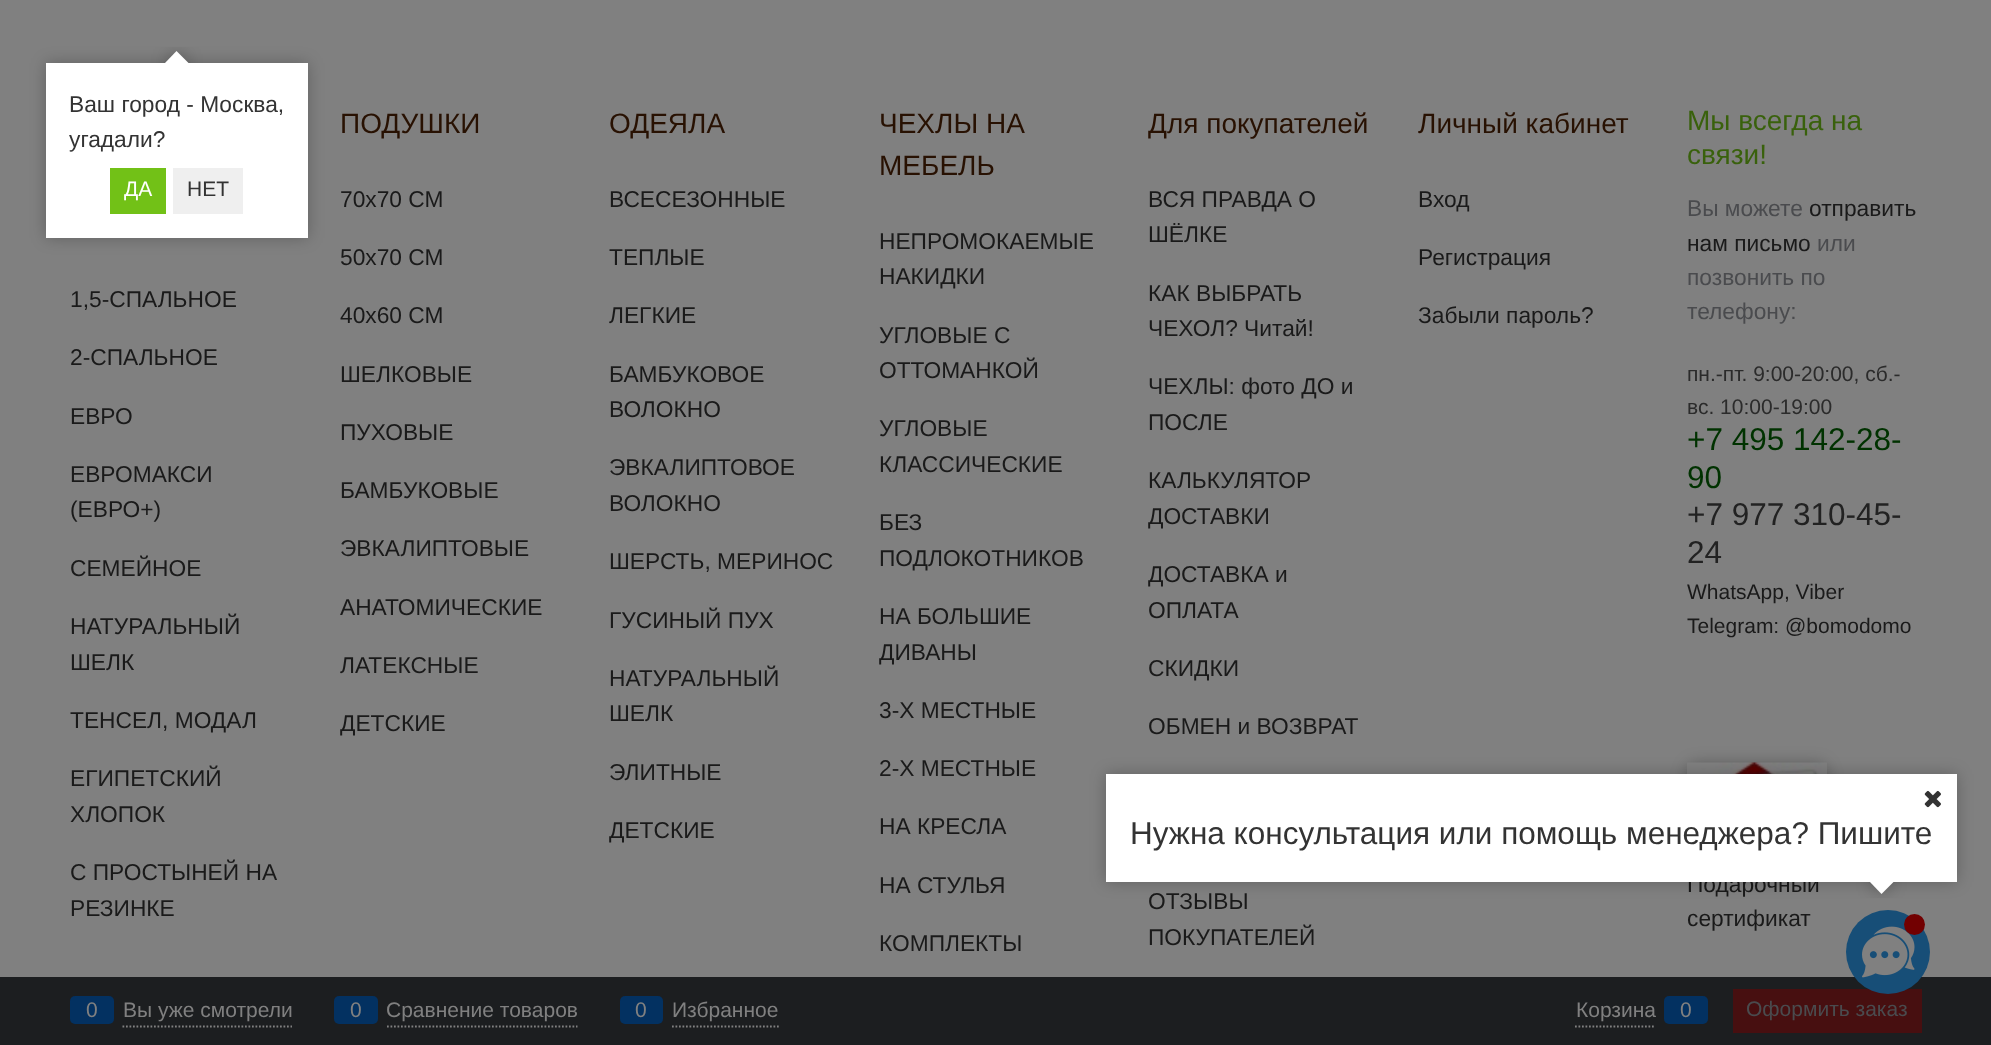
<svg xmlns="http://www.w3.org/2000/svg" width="1991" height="1045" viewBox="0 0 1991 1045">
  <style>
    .t1 { font: 22.75px Liberation Sans; fill: #333; }
    .t2 { font: 21px Liberation Sans; fill: #fff; }
    .t3 { font: 21px Liberation Sans; fill: #333; }
    .t4 { font: 22.75px Liberation Sans; fill: #1a1a1a; }
    .t5 { font: 28px Liberation Sans; fill: #281102; }
    .t6 { font: 28px Liberation Sans; fill: #39610c; }
    .t7 { font: 22.75px Liberation Sans; fill: #4a4b4e; }
    .t8 { font: 21px Liberation Sans; fill: #2b2b2b; }
    .t9 { font: 31.5px Liberation Sans; fill: #003200; }
    .t10 { font: 31.5px Liberation Sans; fill: #222; }
    .t11 { font: 21px Liberation Sans; fill: #1a1a1a; }
    .t12 { font: 21px Liberation Sans; fill: #808080; }
    .t13 { font: 21px Liberation Sans; fill: #4a4b4e; }
    .t14 { font: 31.5px Liberation Sans; fill: #333; }
  </style>
  <defs>
    <clipPath id="clip1"><rect x="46" y="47" width="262" height="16"/></clipPath>
    <clipPath id="clip2"><rect x="46" y="47" width="262" height="16"/></clipPath>
    <clipPath id="clip3"><rect x="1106" y="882" width="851" height="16"/></clipPath>
    <clipPath id="clip4"><rect x="1106" y="882" width="851" height="16"/></clipPath>
  </defs>
  <rect width="100%" height="100%" fill="#808080"/>
  <rect x="46" y="63" width="262" height="175" fill="#00000040" filter="blur(8px)"/>
  <rect x="46" y="63" width="262" height="175" fill="#fff"/>
  <g clip-path="url(#clip1)">
    <rect x="168" y="54" width="18" height="18" fill="#00000040" filter="blur(8px)"/>
  </g>
  <g clip-path="url(#clip2)">
    <path d="M176.5 51L189 63.5L176.5 76L164.5 63.5Z" fill="#fff"/>
  </g>
  <text x="69" y="112" class="t1">Ваш город - Москва,</text>
  <text x="69" y="147" class="t1">угадали?</text>
  <rect x="110" y="168" width="56" height="46" fill="#72c117"/>
  <text x="124" y="196" class="t2">ДА</text>
  <rect x="173" y="168" width="70" height="46" fill="#efefef"/>
  <text x="187" y="196" class="t3">НЕТ</text>
  <text x="70" y="307" class="t4">1,5-СПАЛЬНОЕ</text>
  <text x="70" y="365" class="t4">2-СПАЛЬНОЕ</text>
  <text x="70" y="424" class="t4">ЕВРО</text>
  <text x="70" y="482" class="t4">ЕВРОМАКСИ</text>
  <text x="70" y="517" class="t4">(ЕВРО+)</text>
  <text x="70" y="576" class="t4">СЕМЕЙНОЕ</text>
  <text x="70" y="634" class="t4">НАТУРАЛЬНЫЙ</text>
  <text x="70" y="670" class="t4">ШЕЛК</text>
  <text x="70" y="728" class="t4">ТЕНСЕЛ, МОДАЛ</text>
  <text x="70" y="786" class="t4">ЕГИПЕТСКИЙ</text>
  <text x="70" y="822" class="t4">ХЛОПОК</text>
  <text x="70" y="880" class="t4">С ПРОСТЫНЕЙ НА</text>
  <text x="70" y="916" class="t4">РЕЗИНКЕ</text>
  <text x="340" y="133" class="t5">ПОДУШКИ</text>
  <text x="340" y="207" class="t4">70х70 СМ</text>
  <text x="340" y="265" class="t4">50х70 СМ</text>
  <text x="340" y="323" class="t4">40х60 СМ</text>
  <text x="340" y="382" class="t4">ШЕЛКОВЫЕ</text>
  <text x="340" y="440" class="t4">ПУХОВЫЕ</text>
  <text x="340" y="498" class="t4">БАМБУКОВЫЕ</text>
  <text x="340" y="556" class="t4">ЭВКАЛИПТОВЫЕ</text>
  <text x="340" y="615" class="t4">АНАТОМИЧЕСКИЕ</text>
  <text x="340" y="673" class="t4">ЛАТЕКСНЫЕ</text>
  <text x="340" y="731" class="t4">ДЕТСКИЕ</text>
  <text x="609" y="133" class="t5">ОДЕЯЛА</text>
  <text x="609" y="207" class="t4">ВСЕСЕЗОННЫЕ</text>
  <text x="609" y="265" class="t4">ТЕПЛЫЕ</text>
  <text x="609" y="323" class="t4">ЛЕГКИЕ</text>
  <text x="609" y="382" class="t4">БАМБУКОВОЕ</text>
  <text x="609" y="417" class="t4">ВОЛОКНО</text>
  <text x="609" y="475" class="t4">ЭВКАЛИПТОВОЕ</text>
  <text x="609" y="511" class="t4">ВОЛОКНО</text>
  <text x="609" y="569" class="t4">ШЕРСТЬ, МЕРИНОС</text>
  <text x="609" y="628" class="t4">ГУСИНЫЙ ПУХ</text>
  <text x="609" y="686" class="t4">НАТУРАЛЬНЫЙ</text>
  <text x="609" y="721" class="t4">ШЕЛК</text>
  <text x="609" y="780" class="t4">ЭЛИТНЫЕ</text>
  <text x="609" y="838" class="t4">ДЕТСКИЕ</text>
  <text x="879" y="133" class="t5">ЧЕХЛЫ НА</text>
  <text x="879" y="175" class="t5">МЕБЕЛЬ</text>
  <text x="879" y="249" class="t4">НЕПРОМОКАЕМЫЕ</text>
  <text x="879" y="284" class="t4">НАКИДКИ</text>
  <text x="879" y="343" class="t4">УГЛОВЫЕ С</text>
  <text x="879" y="378" class="t4">ОТТОМАНКОЙ</text>
  <text x="879" y="436" class="t4">УГЛОВЫЕ</text>
  <text x="879" y="472" class="t4">КЛАССИЧЕСКИЕ</text>
  <text x="879" y="530" class="t4">БЕЗ</text>
  <text x="879" y="566" class="t4">ПОДЛОКОТНИКОВ</text>
  <text x="879" y="624" class="t4">НА БОЛЬШИЕ</text>
  <text x="879" y="660" class="t4">ДИВАНЫ</text>
  <text x="879" y="718" class="t4">3-Х МЕСТНЫЕ</text>
  <text x="879" y="776" class="t4">2-Х МЕСТНЫЕ</text>
  <text x="879" y="834" class="t4">НА КРЕСЛА</text>
  <text x="879" y="893" class="t4">НА СТУЛЬЯ</text>
  <text x="879" y="951" class="t4">КОМПЛЕКТЫ</text>
  <text x="1148" y="133" class="t5">Для покупателей</text>
  <text x="1148" y="207" class="t4">ВСЯ ПРАВДА О</text>
  <text x="1148" y="242" class="t4">ШЁЛКЕ</text>
  <text x="1148" y="301" class="t4">КАК ВЫБРАТЬ</text>
  <text x="1148" y="336" class="t4">ЧЕХОЛ? Читай!</text>
  <text x="1148" y="394" class="t4">ЧЕХЛЫ: фото ДО и</text>
  <text x="1148" y="430" class="t4">ПОСЛЕ</text>
  <text x="1148" y="488" class="t4">КАЛЬКУЛЯТОР</text>
  <text x="1148" y="524" class="t4">ДОСТАВКИ</text>
  <text x="1148" y="582" class="t4">ДОСТАВКА и</text>
  <text x="1148" y="618" class="t4">ОПЛАТА</text>
  <text x="1148" y="676" class="t4">СКИДКИ</text>
  <text x="1148" y="734" class="t4">ОБМЕН и ВОЗВРАТ</text>
  <text x="1148" y="909" class="t4">ОТЗЫВЫ</text>
  <text x="1148" y="945" class="t4">ПОКУПАТЕЛЕЙ</text>
  <text x="1418" y="133" class="t5">Личный кабинет</text>
  <text x="1418" y="207" class="t4">Вход</text>
  <text x="1418" y="265" class="t4">Регистрация</text>
  <text x="1418" y="323" class="t4">Забыли пароль?</text>
  <text x="1687" y="130" class="t6">Мы всегда на</text>
  <text x="1687" y="164" class="t6">связи!</text>
  <text x="1687" y="216" class="t7">Вы можете</text>
  <text x="1809" y="216" class="t4">отправить</text>
  <text x="1687" y="251" class="t4">нам письмо</text>
  <text x="1817" y="251" class="t7">или</text>
  <text x="1687" y="285" class="t7">позвонить по</text>
  <text x="1687" y="319" class="t7">телефону:</text>
  <text x="1687" y="381" class="t8">пн.-пт. 9:00-20:00, сб.-</text>
  <text x="1687" y="414" class="t8">вс. 10:00-19:00</text>
  <text x="1687" y="450" class="t9">+7 495 142-28-</text>
  <text x="1687" y="488" class="t9">90</text>
  <text x="1687" y="525" class="t10">+7 977 310-45-</text>
  <text x="1687" y="563" class="t10">24</text>
  <text x="1687" y="599" class="t11">WhatsApp, Viber</text>
  <text x="1687" y="633" class="t11">Telegram: @bomodomo</text>
  <rect x="1687" y="763" width="140" height="88" rx="9" fill="#00000040" filter="blur(8px)"/>
  <image x="1687" y="762" width="140" height="12" href="images/1.png"/>
  <text x="1687" y="892" class="t4">Подарочный</text>
  <text x="1687" y="926" class="t4">сертификат</text>
  <rect x="0" y="977" width="1991" height="68" fill="#1c1e20"/>
  <path d="M122.5 1026.5H292" fill="none" stroke="#808080" stroke-width="1.8" stroke-dasharray="1.75 1.75"/>
  <rect x="70" y="996" width="44" height="28" rx="5" fill="#033161"/>
  <text x="86" y="1017" class="t12">0</text>
  <text x="123" y="1017" class="t12">Вы уже смотрели</text>
  <path d="M387 1026.5H577.5" fill="none" stroke="#808080" stroke-width="1.8" stroke-dasharray="1.75 1.75"/>
  <rect x="334" y="996" width="44" height="28" rx="5" fill="#033161"/>
  <text x="350" y="1017" class="t12">0</text>
  <text x="386" y="1017" class="t12">Сравнение товаров</text>
  <path d="M672 1026.5H779" fill="none" stroke="#808080" stroke-width="1.8" stroke-dasharray="1.75 1.75"/>
  <rect x="620" y="996" width="43" height="28" rx="5" fill="#033161"/>
  <text x="635" y="1017" class="t12">0</text>
  <text x="672" y="1017" class="t12">Избранное</text>
  <path d="M1575 1026.5H1655.5" fill="none" stroke="#808080" stroke-width="1.8" stroke-dasharray="1.75 1.75"/>
  <text x="1576" y="1017" class="t12">Корзина</text>
  <rect x="1664" y="996" width="44" height="28" rx="5" fill="#033161"/>
  <text x="1680" y="1017" class="t12">0</text>
  <rect x="1733" y="989" width="189" height="44" fill="#470f10"/>
  <text x="1746" y="1016" class="t13">Оформить заказ</text>
  <rect x="1106" y="774" width="851" height="108" fill="#00000040" filter="blur(8px)"/>
  <rect x="1106" y="774" width="851" height="108" fill="#fff"/>
  <image x="1924" y="790" width="17" height="18" href="images/2.png"/>
  <text x="1130" y="844" class="t14">Нужна консультация или помощь менеджера? Пишите</text>
  <circle cx="1888" cy="952" r="42" fill="#174e77"/>
  <image x="1862" y="926" width="53" height="52" href="images/3.png"/>
  <circle cx="1914.5" cy="924.5" r="10.5" fill="#720001"/>
  <g clip-path="url(#clip3)">
    <rect x="1873" y="873" width="17" height="18" fill="#00000040" filter="blur(8px)"/>
  </g>
  <g clip-path="url(#clip4)">
    <path d="M1881.5 869L1894 881.5L1881.5 894L1869.5 881.5Z" fill="#fff"/>
  </g>
</svg>
